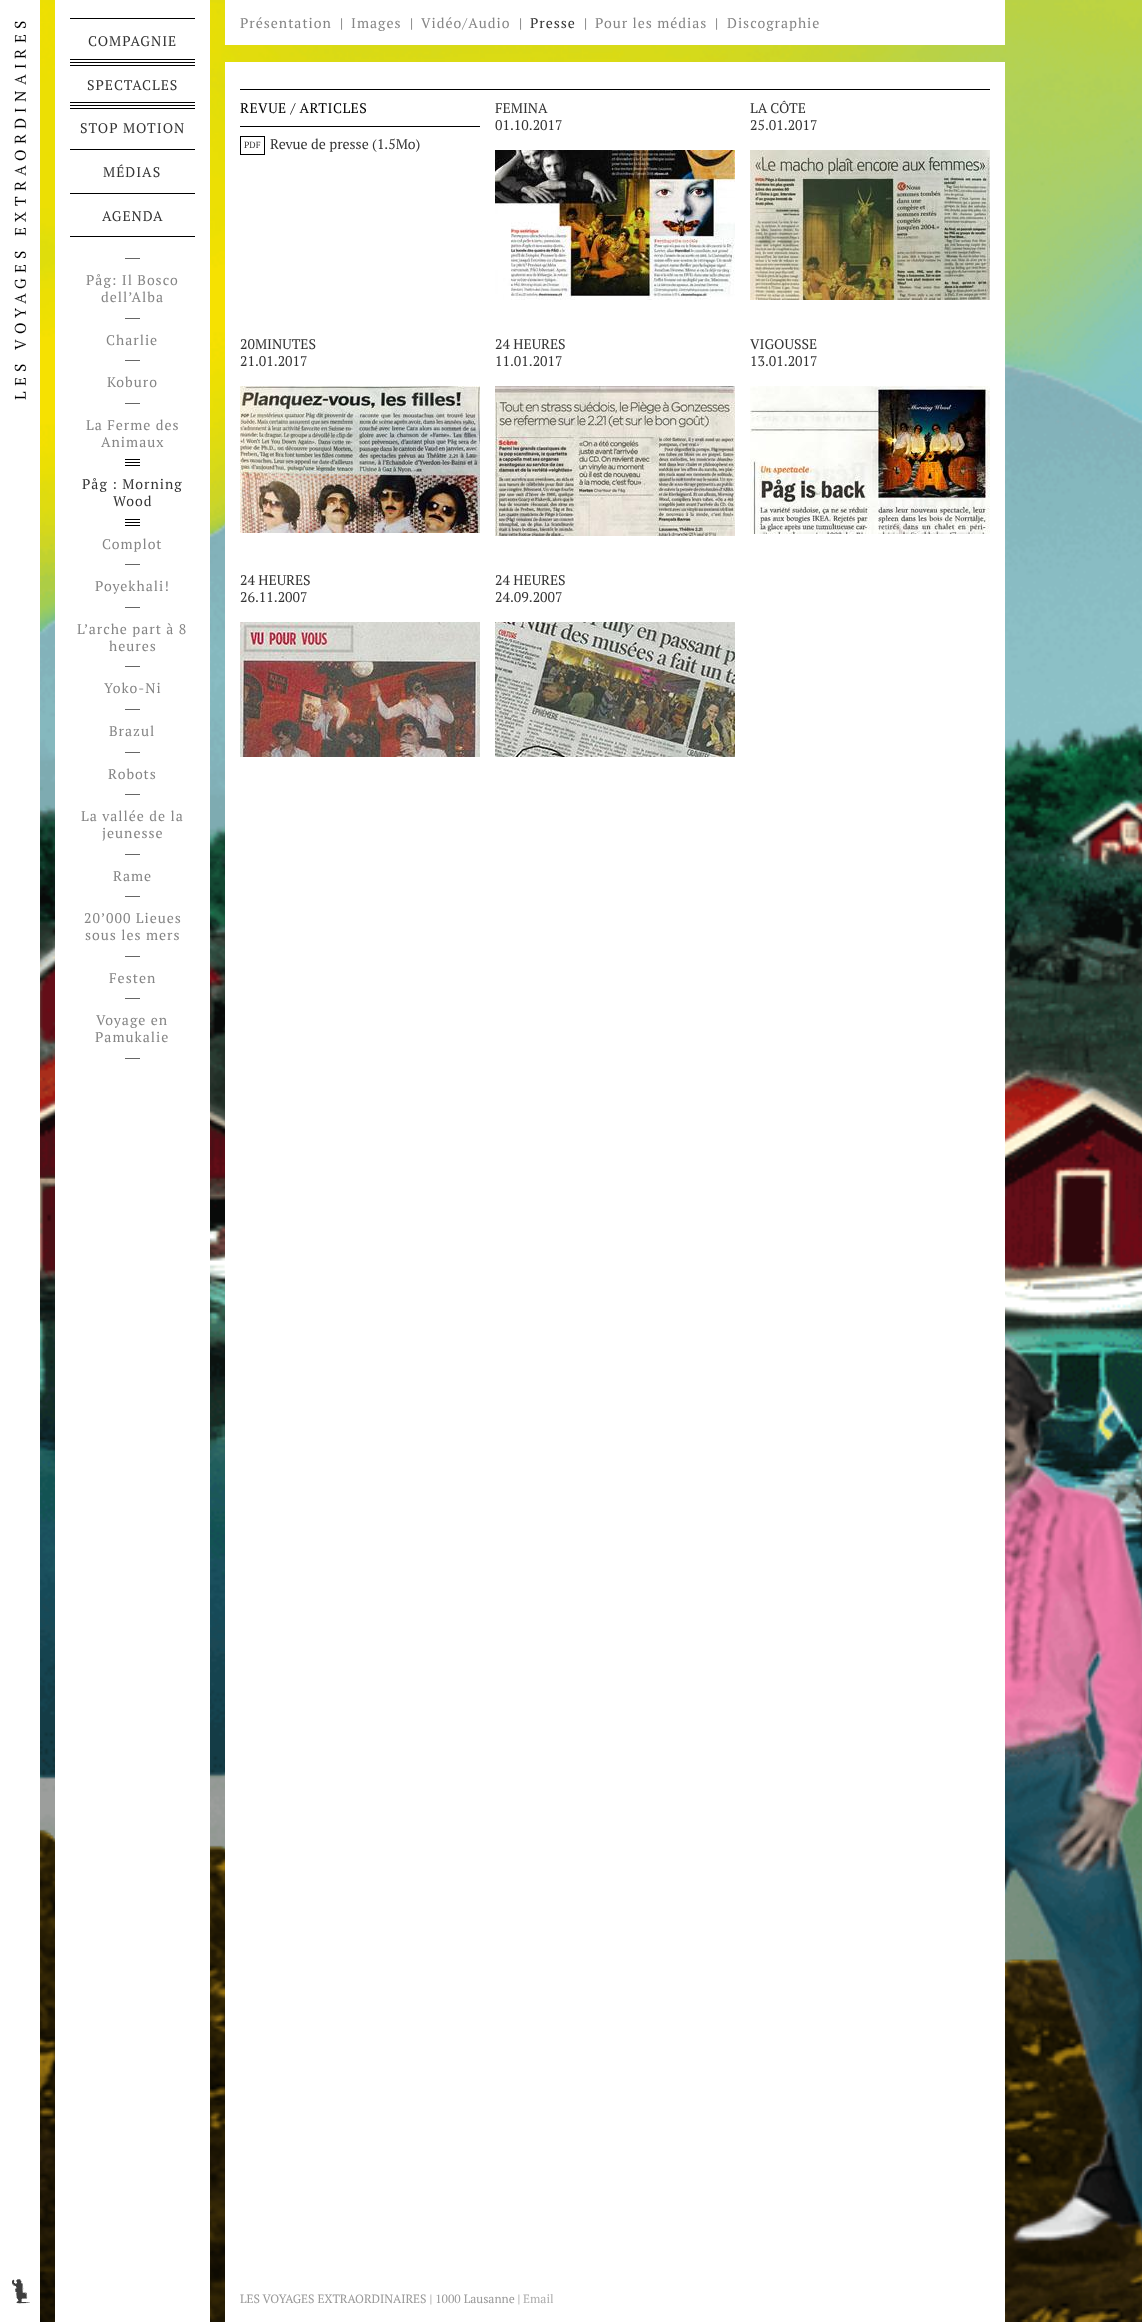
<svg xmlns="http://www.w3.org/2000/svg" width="1142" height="2322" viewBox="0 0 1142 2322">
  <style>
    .t1 { font: 14px PT Serif; letter-spacing: 1px; fill: #333; }
    .t2 { font: 14px PT Serif; letter-spacing: 1px; fill: #858585; }
    .t3 { font: 14px PT Serif; fill: #666; }
    .t4 { font: 14px PT Serif; letter-spacing: 0.5px; fill: #000; }
    .t5 { font: 9px PT Serif; fill: #333; }
    .t6 { font: 14px PT Serif; fill: #333; }
    .t7 { font: 12px PT Serif; fill: #999; }
    .t8 { font: 12px PT Serif; fill: #adadad; }
  </style>
  <rect width="100%" height="100%" fill="#fff"/>
  <image x="40" y="366" width="1102" height="1813" href="images/13.png"/>
  <image x="40" y="0" width="1102" height="635" href="images/1.png"/>
  <image x="40" y="363" width="1102" height="1604" href="images/2.png"/>
  <image x="40" y="1334" width="1102" height="988" href="images/3.png"/>
  <image x="14" y="21" width="13" height="379" href="images/4.png"/>
  <image x="12" y="2279" width="18" height="25" href="images/5.png"/>
  <rect x="55" y="0" width="155" height="2322" fill="#fff"/>
  <rect x="70" y="18" width="125" height="1" fill="#000"/>
  <text x="88" y="46" class="t1">COMPAGNIE</text>
  <rect x="70" y="59" width="125" height="1" fill="#000"/>
  <rect x="70" y="62" width="125" height="1" fill="#000"/>
  <rect x="70" y="65" width="125" height="1" fill="#000"/>
  <text x="87" y="90" class="t1">SPECTACLES</text>
  <rect x="70" y="102" width="125" height="1" fill="#000"/>
  <rect x="70" y="105" width="125" height="1" fill="#000"/>
  <rect x="70" y="108" width="125" height="1" fill="#000"/>
  <text x="80" y="133" class="t1">STOP MOTION</text>
  <rect x="70" y="149" width="125" height="1" fill="#000"/>
  <text x="103" y="177" class="t1">MÉDIAS</text>
  <rect x="70" y="193" width="125" height="1" fill="#000"/>
  <text x="102" y="221" class="t1">AGENDA</text>
  <rect x="70" y="236" width="125" height="1" fill="#000"/>
  <rect x="125" y="258" width="15" height="1" fill="#666"/>
  <text x="86" y="285" class="t2">Påg: Il Bosco</text>
  <text x="101" y="302" class="t2">dell’Alba</text>
  <rect x="125" y="318" width="15" height="1" fill="#666"/>
  <text x="106" y="345" class="t2">Charlie</text>
  <rect x="125" y="360" width="15" height="1" fill="#666"/>
  <text x="107" y="387" class="t2">Koburo</text>
  <rect x="125" y="403" width="15" height="1" fill="#666"/>
  <text x="86" y="430" class="t2">La Ferme des</text>
  <text x="101" y="447" class="t2">Animaux</text>
  <rect x="125" y="459" width="15" height="1" fill="#000"/>
  <rect x="125" y="462" width="15" height="1" fill="#000"/>
  <rect x="125" y="465" width="15" height="1" fill="#000"/>
  <text x="82" y="489" class="t1">Påg : Morning</text>
  <text x="113" y="506" class="t1">Wood</text>
  <rect x="125" y="519" width="15" height="1" fill="#000"/>
  <rect x="125" y="522" width="15" height="1" fill="#000"/>
  <rect x="125" y="525" width="15" height="1" fill="#000"/>
  <text x="102" y="549" class="t2">Complot</text>
  <rect x="125" y="564" width="15" height="1" fill="#666"/>
  <text x="95" y="591" class="t2">Poyekhali!</text>
  <rect x="125" y="607" width="15" height="1" fill="#666"/>
  <text x="77" y="634" class="t2">L’arche part à 8</text>
  <text x="109" y="651" class="t2">heures</text>
  <rect x="125" y="666" width="15" height="1" fill="#666"/>
  <text x="104" y="693" class="t2">Yoko-Ni</text>
  <rect x="125" y="709" width="15" height="1" fill="#666"/>
  <text x="109" y="736" class="t2">Brazul</text>
  <rect x="125" y="752" width="15" height="1" fill="#666"/>
  <text x="108" y="779" class="t2">Robots</text>
  <rect x="125" y="794" width="15" height="1" fill="#666"/>
  <text x="81" y="821" class="t2">La vallée de la</text>
  <text x="102" y="838" class="t2">jeunesse</text>
  <rect x="125" y="854" width="15" height="1" fill="#666"/>
  <text x="113" y="881" class="t2">Rame</text>
  <rect x="125" y="896" width="15" height="1" fill="#666"/>
  <text x="84" y="923" class="t2">20’000 Lieues</text>
  <text x="85" y="940" class="t2">sous les mers</text>
  <rect x="125" y="956" width="15" height="1" fill="#666"/>
  <text x="109" y="983" class="t2">Festen</text>
  <rect x="125" y="998" width="15" height="1" fill="#666"/>
  <text x="96" y="1025" class="t2">Voyage en</text>
  <text x="95" y="1042" class="t2">Pamukalie</text>
  <rect x="125" y="1058" width="15" height="1" fill="#666"/>
  <rect x="225" y="0" width="780" height="45" fill="#fff"/>
  <rect x="225" y="62" width="780" height="2260" fill="#fff"/>
  <text x="240" y="28" class="t2">Présentation</text>
  <text x="340" y="28" class="t3">|</text>
  <text x="351" y="28" class="t2">Images</text>
  <text x="410" y="28" class="t3">|</text>
  <text x="421" y="28" class="t2">Vidéo/Audio</text>
  <text x="519" y="28" class="t3">|</text>
  <text x="530" y="28" class="t1">Presse</text>
  <text x="584" y="28" class="t3">|</text>
  <text x="595" y="28" class="t2">Pour les médias</text>
  <text x="715" y="28" class="t3">|</text>
  <text x="727" y="28" class="t2">Discographie</text>
  <rect x="240" y="89" width="750" height="1" fill="#000"/>
  <rect x="240" y="126" width="240" height="1" fill="#000"/>
  <text x="240" y="113" class="t4">REVUE / ARTICLES</text>
  <rect x="240.5" y="136.5" width="24" height="18" fill="none" stroke="#000"/>
  <text x="244" y="148" class="t5">PDF</text>
  <text x="270" y="149" class="t6">Revue de presse (1.5Mo)</text>
  <text x="495" y="113" class="t6">FEMINA</text>
  <text x="495" y="130" class="t6">01.10.2017</text>
  <image x="495" y="150" width="240" height="150" href="images/6.png"/>
  <text x="750" y="113" class="t6">LA CÔTE</text>
  <text x="750" y="130" class="t6">25.01.2017</text>
  <image x="750" y="150" width="240" height="150" href="images/7.png"/>
  <text x="240" y="349" class="t6">20MINUTES</text>
  <text x="240" y="366" class="t6">21.01.2017</text>
  <image x="240" y="386" width="240" height="147" href="images/8.png"/>
  <text x="495" y="349" class="t6">24 HEURES</text>
  <text x="495" y="366" class="t6">11.01.2017</text>
  <image x="495" y="386" width="240" height="150" href="images/9.png"/>
  <text x="750" y="349" class="t6">VIGOUSSE</text>
  <text x="750" y="366" class="t6">13.01.2017</text>
  <image x="750" y="386" width="240" height="148" href="images/10.png"/>
  <text x="240" y="585" class="t6">24 HEURES</text>
  <text x="240" y="602" class="t6">26.11.2007</text>
  <image x="240" y="622" width="240" height="135" href="images/11.png"/>
  <text x="495" y="585" class="t6">24 HEURES</text>
  <text x="495" y="602" class="t6">24.09.2007</text>
  <image x="495" y="622" width="240" height="135" href="images/12.png"/>
  <text x="240" y="2303" class="t7">LES VOYAGES EXTRAORDINAIRES | 1000 Lausanne |</text>
  <text x="523" y="2303" class="t8">Email</text>
</svg>
